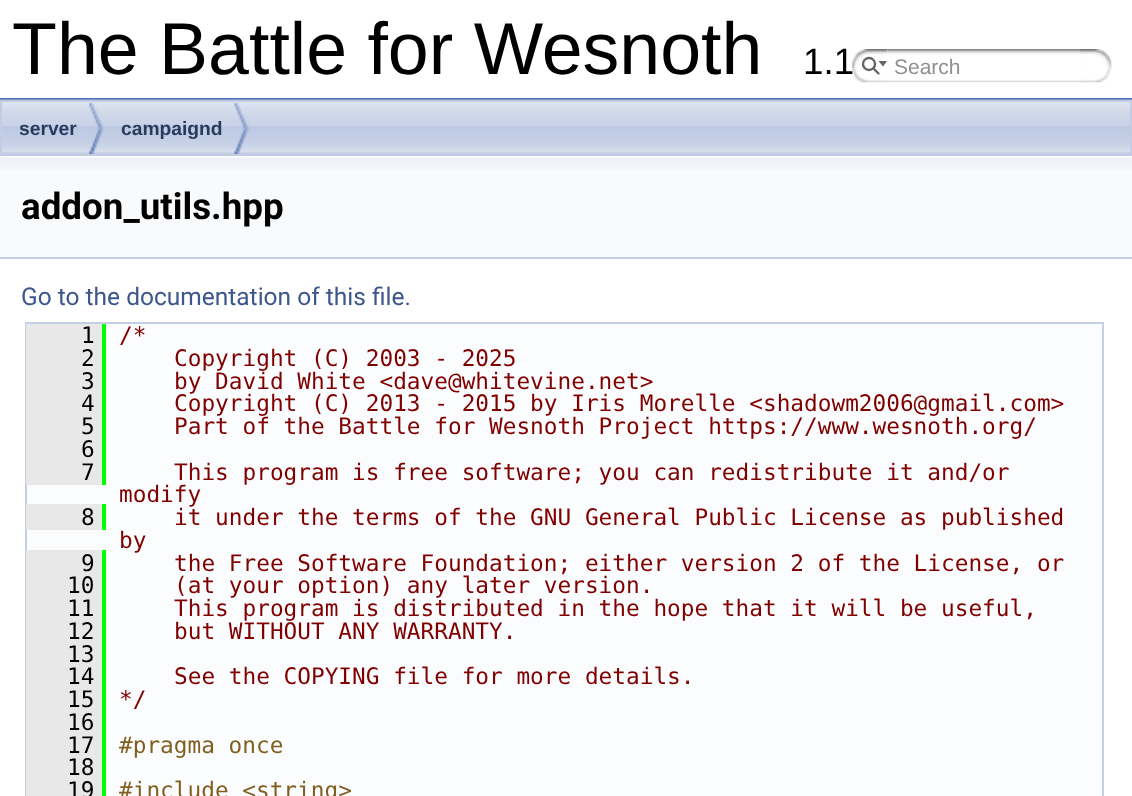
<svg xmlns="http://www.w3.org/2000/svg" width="1132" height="796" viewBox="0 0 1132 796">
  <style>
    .t1 { font: 73.5px Liberation Sans; fill: #000; }
    .t2 { font: 36.75px Liberation Sans; fill: #000; }
    .t3 { font: 21px Liberation Sans; fill: #909090; }
    .t4 { font: bold 19.25px Liberation Sans; fill: #283a5d; }
    .t5 { font: bold 36.75px Roboto; fill: #000; }
    .t6 { font: 24.5px Roboto; fill: #3d578c; }
    .t7 { font: 22.75px DejaVu Sans Mono; fill: #000; }
    .t8 { font: 22.75px DejaVu Sans Mono; fill: #800000; }
    .t9 { font: 22.75px DejaVu Sans Mono; fill: #806020; }
  </style>
  <rect width="100%" height="100%" fill="#fff"/>
  <rect x="0" y="98" width="1132" height="2" fill="#5373b4"/>
  <text x="12" y="74" class="t1">The Battle for Wesnoth</text>
  <text x="803" y="74" class="t2">1.1</text>
  <image x="852" y="49" width="36" height="34" href="images/1.png"/>
  <circle cx="869" cy="64" r="6" fill="none" stroke="#656565" stroke-width="2.4"/>
  <path d="M878.5 61L883 66.5L887 61Z" fill="#656565"/>
  <path d="M873.5 68.5L878.5 73.5" fill="none" stroke="#656565" stroke-width="2.4" stroke-linecap="round"/>
  <image x="887" y="49" width="205" height="34" href="images/2.png"/>
  <text x="894" y="74" class="t3">Search</text>
  <image x="1079" y="49" width="33" height="34" href="images/3.png"/>
  <image x="0" y="99" width="1132" height="55" href="images/4.png"/>
  <rect x="1" y="101" width="1130" height="54" fill="none" stroke="#c2cde4" stroke-width="2"/>
  <image x="89" y="103" width="15" height="51" href="images/5.png"/>
  <text x="19" y="135" class="t4">server</text>
  <image x="234" y="103" width="15" height="51" href="images/6.png"/>
  <text x="121" y="135" class="t4">campaignd</text>
  <rect x="0" y="170" width="1132" height="87" fill="#f9fafc"/>
  <image x="0" y="156" width="1132" height="14" href="images/7.png"/>
  <rect x="0" y="257" width="1132" height="2" fill="#c4cfe5"/>
  <text x="21" y="219" class="t5">addon_utils.hpp</text>
  <text x="21" y="305" class="t6">Go to the documentation of this file.</text>
  <rect x="26" y="323" width="1077" height="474" fill="#fbfcfd" stroke="#c4cfe5" stroke-width="2"/>
  <rect x="26" y="324" width="76" height="161" fill="#e8e8e8"/>
  <text x="81" y="343" class="t7">1</text>
  <rect x="102" y="324" width="4" height="161" fill="#0f0"/>
  <text x="119" y="343" class="t8">/*</text>
  <text x="81" y="366" class="t7">2</text>
  <text x="174" y="366" class="t8">Copyright (C) 2003 - 2025</text>
  <text x="81" y="389" class="t7">3</text>
  <text x="174" y="389" class="t8">by David White &lt;dave@whitevine.net&gt;</text>
  <text x="81" y="411" class="t7">4</text>
  <text x="174" y="411" class="t8">Copyright (C) 2013 - 2015 by Iris Morelle &lt;shadowm2006@gmail.com&gt;</text>
  <text x="81" y="434" class="t7">5</text>
  <text x="174" y="434" class="t8">Part of the Battle for Wesnoth Project https://www.wesnoth.org/</text>
  <text x="81" y="457" class="t7">6</text>
  <text x="81" y="480" class="t7">7</text>
  <text x="174" y="480" class="t8">This program is free software; you can redistribute it and/or</text>
  <text x="119" y="502" class="t8">modify</text>
  <rect x="26" y="504" width="76" height="26" fill="#e8e8e8"/>
  <text x="81" y="525" class="t7">8</text>
  <rect x="102" y="504" width="4" height="26" fill="#0f0"/>
  <text x="174" y="525" class="t8">it under the terms of the GNU General Public License as published</text>
  <text x="119" y="548" class="t8">by</text>
  <rect x="26" y="550" width="76" height="246" fill="#e8e8e8"/>
  <text x="81" y="571" class="t7">9</text>
  <rect x="102" y="550" width="4" height="246" fill="#0f0"/>
  <text x="174" y="571" class="t8">the Free Software Foundation; either version 2 of the License, or</text>
  <text x="67" y="593" class="t7">10</text>
  <text x="174" y="593" class="t8">(at your option) any later version.</text>
  <text x="67" y="616" class="t7">11</text>
  <text x="174" y="616" class="t8">This program is distributed in the hope that it will be useful,</text>
  <text x="67" y="639" class="t7">12</text>
  <text x="174" y="639" class="t8">but WITHOUT ANY WARRANTY.</text>
  <text x="67" y="662" class="t7">13</text>
  <text x="67" y="684" class="t7">14</text>
  <text x="174" y="684" class="t8">See the COPYING file for more details.</text>
  <text x="67" y="707" class="t7">15</text>
  <text x="119" y="707" class="t8">*/</text>
  <text x="67" y="730" class="t7">16</text>
  <text x="67" y="753" class="t7">17</text>
  <text x="119" y="753" class="t9">#pragma once</text>
  <text x="67" y="775" class="t7">18</text>
  <text x="67" y="798" class="t7">19</text>
  <text x="119" y="798" class="t9">#include &lt;string&gt;</text>
</svg>
